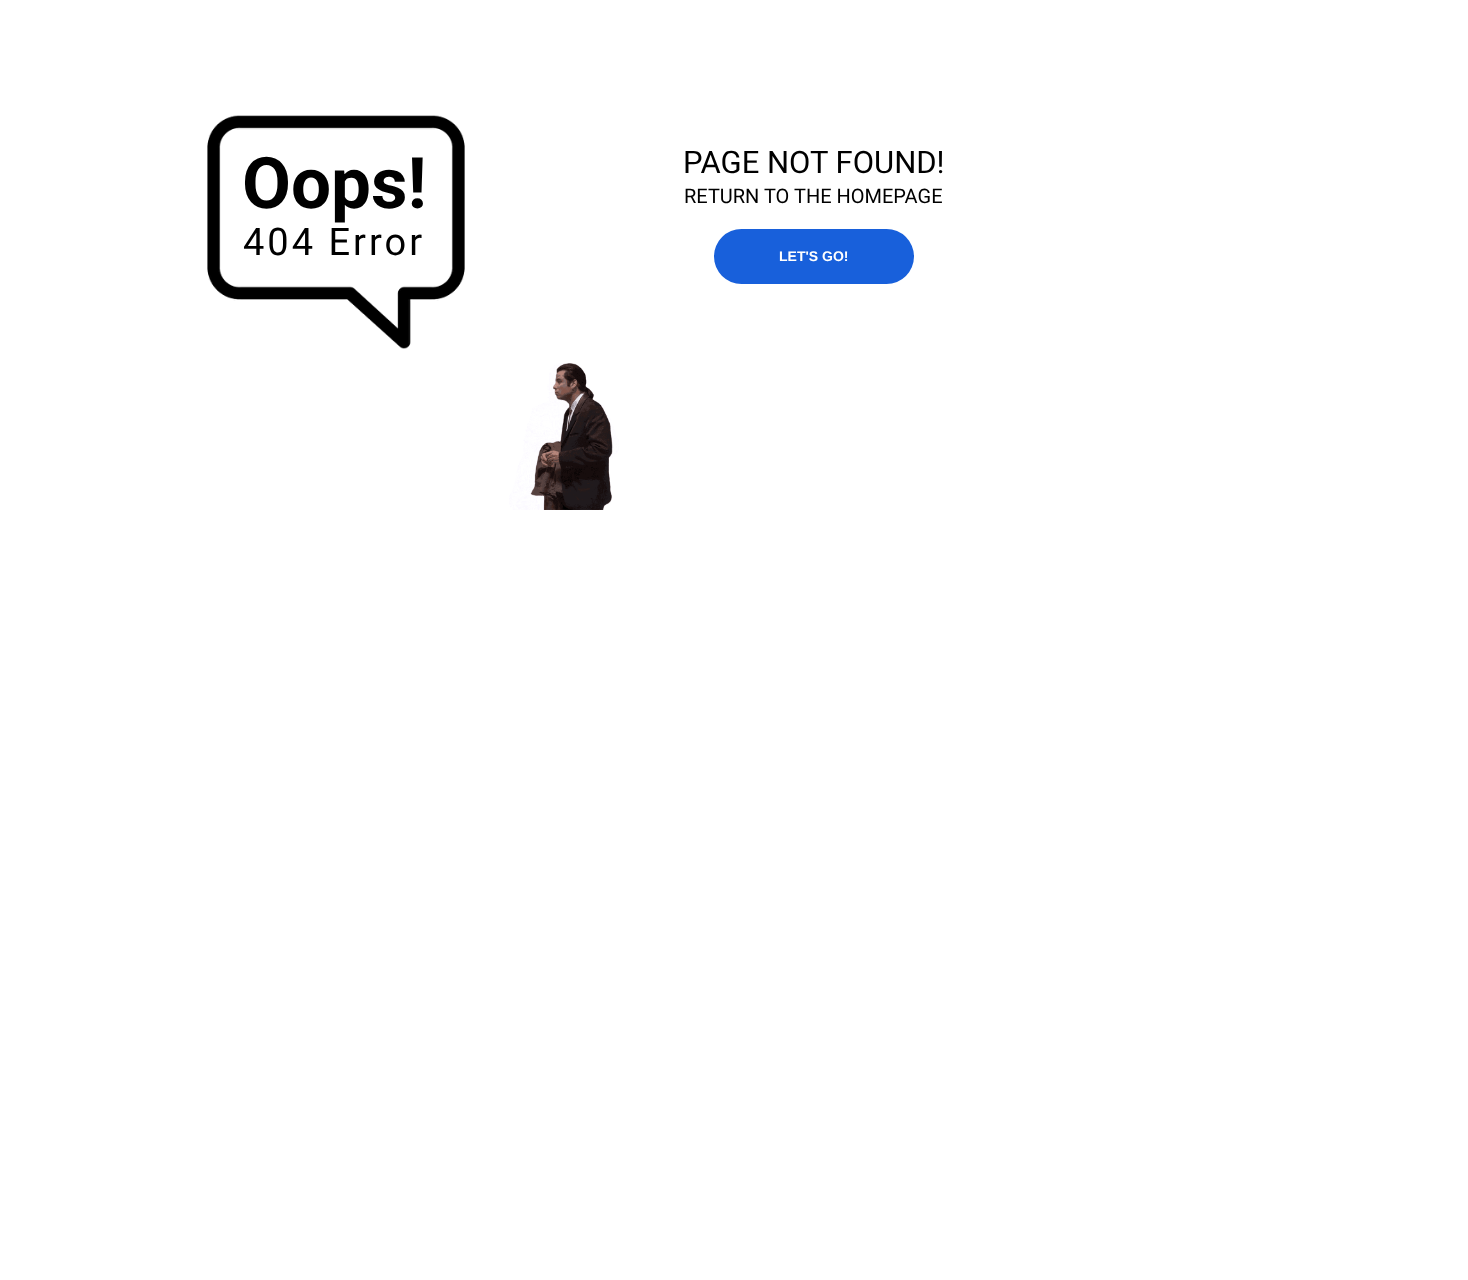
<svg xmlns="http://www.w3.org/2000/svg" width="1468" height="1280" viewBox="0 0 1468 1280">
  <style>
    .t1 { font: bold 71px Roboto; fill: #000; }
    .t2 { font: 38px Roboto; letter-spacing: 3px; fill: #000; }
    .t3 { font: 31px Roboto; fill: #000; }
    .t4 { font: 20px Roboto; fill: #000; }
    .t5 { font: bold 14px Liberation Sans; fill: #fff; }
  </style>
  <rect width="100%" height="100%" fill="#fff"/>
  <text x="242" y="208" class="t1">Oops!</text>
  <text x="243" y="255" class="t2">404 Error</text>
  <image x="207" y="115" width="258" height="234" href="images/1.png"/>
  <text x="683" y="173" class="t3">PAGE NOT FOUND!</text>
  <text x="684" y="203" class="t4">RETURN TO THE HOMEPAGE</text>
  <rect x="714" y="229" width="200" height="55" rx="27.5" fill="#1860db"/>
  <text x="779" y="261" class="t5">LET'S GO!</text>
  <image x="509" y="363" width="110" height="147" href="images/2.png"/>
</svg>
